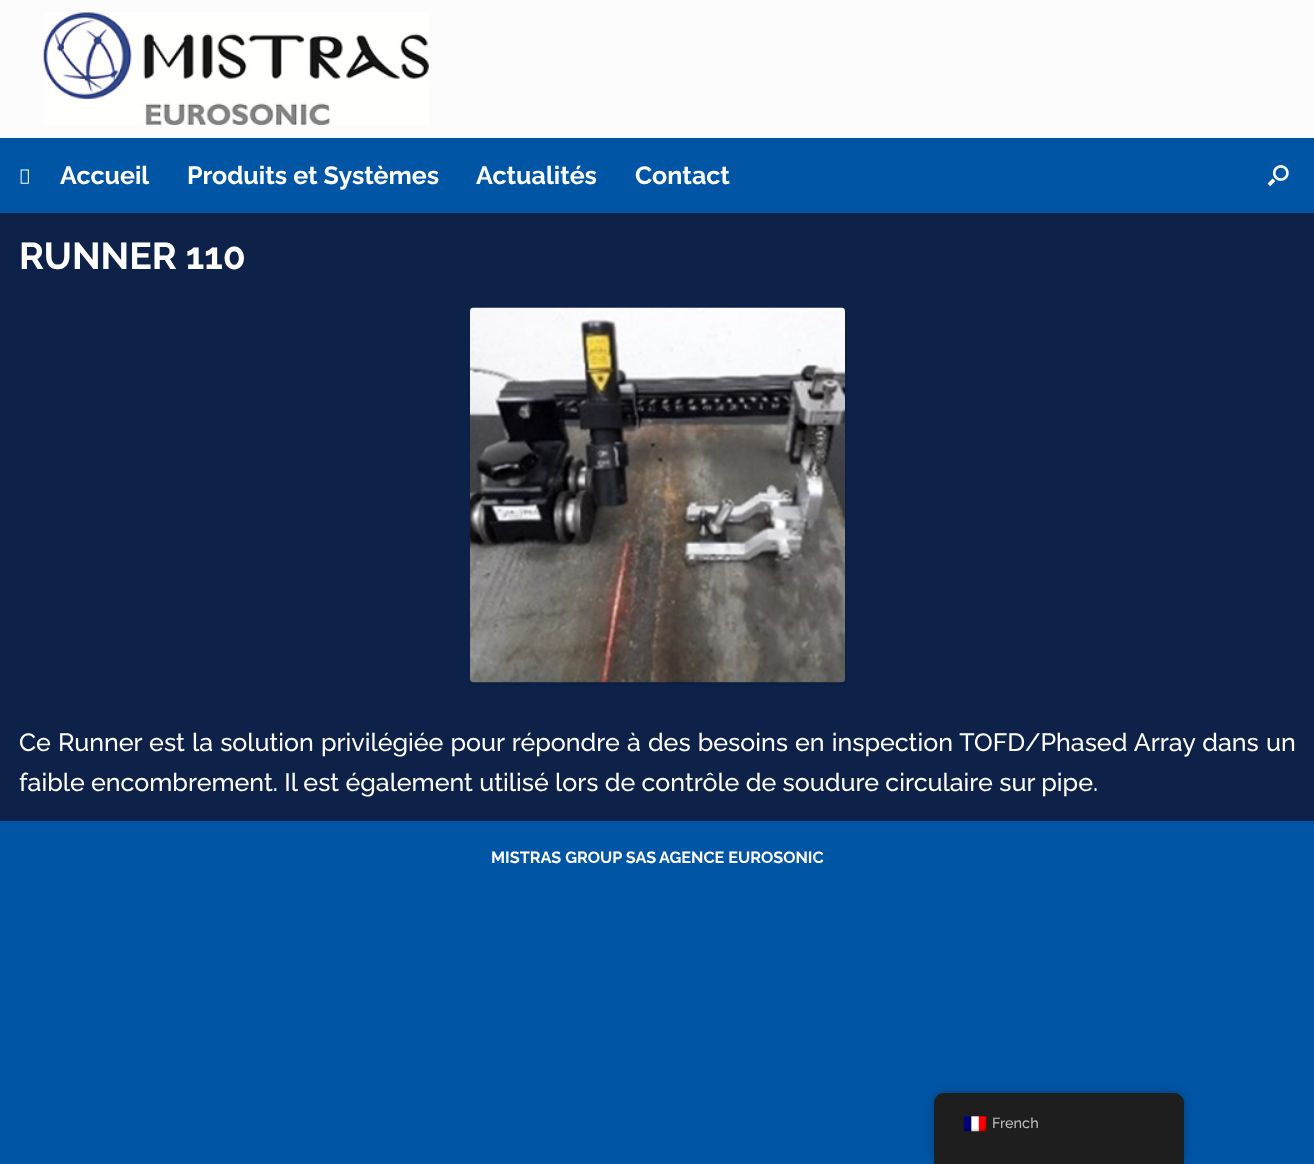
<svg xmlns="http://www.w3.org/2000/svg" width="1314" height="1164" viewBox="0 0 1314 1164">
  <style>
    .t1 { font: bold 25px Raleway; fill: #fff; }
    .t2 { font: bold 37.5px Raleway; fill: #fff; }
    .t3 { font: 500 25px Raleway; fill: #fff; }
    .t4 { font: bold 16.25px Raleway; fill: #fff; }
    .t5 { font: 500 14.5px Raleway; fill: #bdbdbd; }
  </style>
  <rect width="100%" height="100%" fill="#0055a5"/>
  <rect x="0" y="0" width="1314" height="138" fill="#fcfcfc"/>
  <image x="43" y="12" width="386" height="113" href="images/1.png"/>
  <image x="20" y="169" width="9" height="15" href="images/2.png"/>
  <text x="60" y="184" class="t1">Accueil</text>
  <text x="187" y="184" class="t1">Produits et Systèmes</text>
  <text x="476" y="184" class="t1">Actualités</text>
  <text x="635" y="184" class="t1">Contact</text>
  <image x="1267" y="165" width="22" height="22" href="images/3.png"/>
  <rect x="0" y="213" width="1314" height="608" fill="#0d2149"/>
  <text x="19" y="269" class="t2">RUNNER 110</text>
  <rect x="470" y="309" width="375" height="375" rx="4" fill="#0000002e" filter="blur(1px)"/>
  <image x="470" y="307" width="375" height="376" href="images/4.png"/>
  <text x="19" y="751" word-spacing="0.8" class="t3">Ce Runner est la solution privilégiée pour répondre à des besoins en inspection TOFD/Phased Array dans un</text>
  <text x="19" y="791" class="t3">faible encombrement. Il est également utilisé lors de contrôle de soudure circulaire sur pipe.</text>
  <text x="491" y="863" class="t4">MISTRAS GROUP SAS</text>
  <text x="659" y="863" class="t4">AGENCE EUROSONIC</text>
  <rect x="934" y="1093" width="250" height="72" rx="10" fill="#00000040" filter="blur(5px)"/>
  <path d="M944 1093H1174C1179.5 1093 1184 1097.5 1184 1103V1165H934V1103C934 1097.5 938.5 1093 944 1093Z" fill="#1e1e1e"/>
  <image x="963" y="1116" width="24" height="16" href="images/5.png"/>
  <text x="992" y="1128" class="t5">French</text>
</svg>
